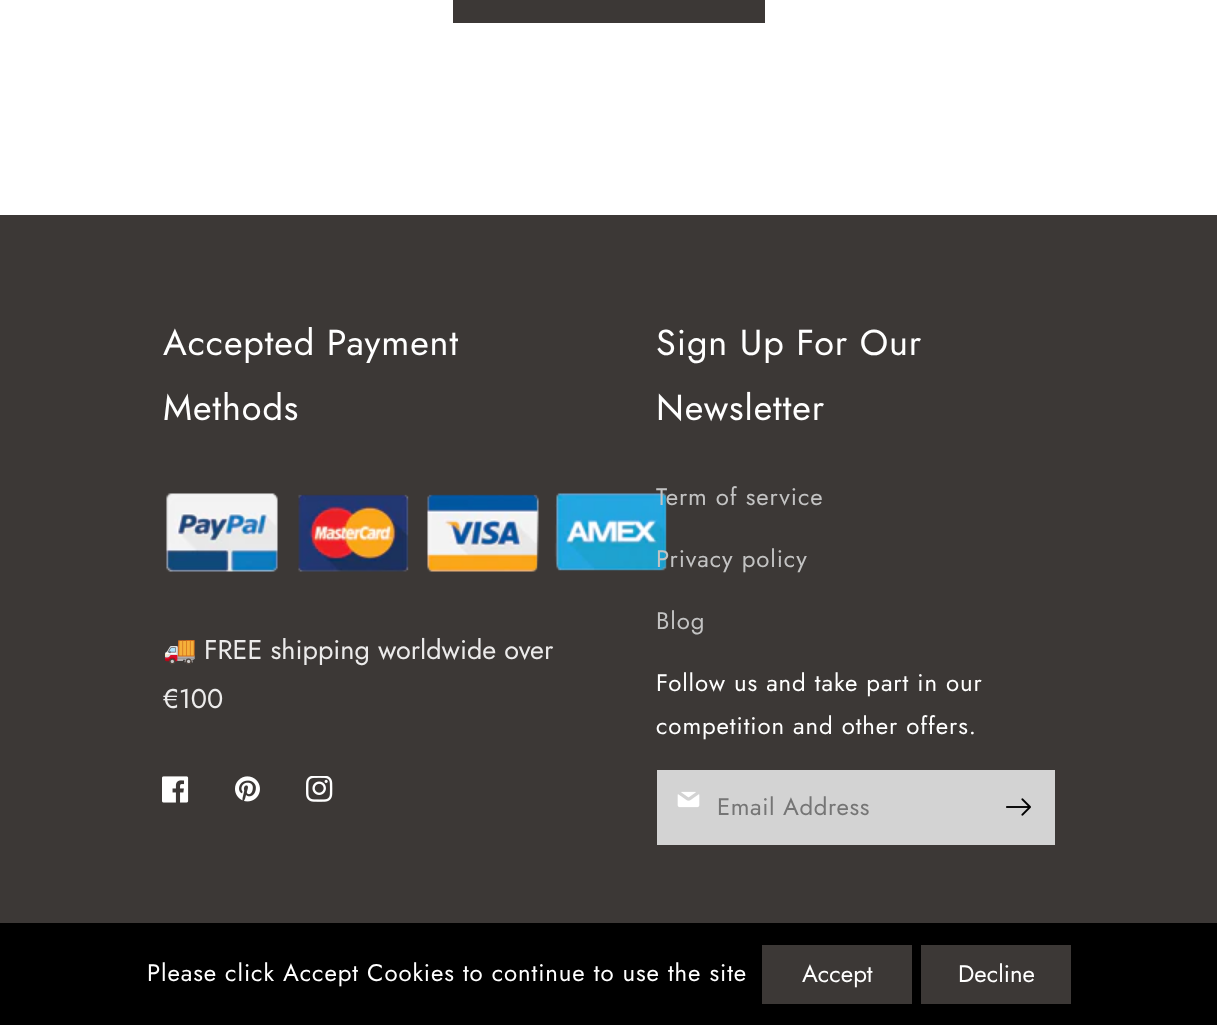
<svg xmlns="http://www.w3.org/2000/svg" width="1217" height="1025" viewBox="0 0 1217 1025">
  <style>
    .t1 { font: 36px Jost; letter-spacing: 0.9px; fill: #fff; }
    .t2 { font: 27px Noto Color Emoji; fill: #ecebeb; }
    .t3 { font: 27px Jost; fill: #ecebeb; }
    .t4 { font: 24px Jost; letter-spacing: 0.9px; fill: #c3c3c3; }
    .t5 { font: 24px Jost; letter-spacing: 0.9px; fill: #fff; }
    .t6 { font: 24px Jost; letter-spacing: 0.6px; fill: #757575; }
    .t7 { font: 24px Jost; fill: #fff; }
  </style>
  <rect width="100%" height="100%" fill="#fff"/>
  <rect x="453" y="0" width="312" height="23" fill="#3c3836"/>
  <rect x="0" y="215" width="1217" height="708" fill="#3c3836"/>
  <text x="163" y="355" class="t1">Accepted Payment</text>
  <text x="163" y="420" class="t1">Methods</text>
  <image x="166" y="493" width="501" height="79" href="images/1.png"/>
  <text x="163" y="659" class="t2">🚚</text>
  <text x="204" y="659" class="t3">FREE shipping worldwide over</text>
  <text x="163" y="708" class="t3">€100</text>
  <image x="162" y="776" width="27" height="27" href="images/2.png"/>
  <image x="235" y="776" width="25" height="26" href="images/3.png"/>
  <image x="306" y="776" width="27" height="26" href="images/4.png"/>
  <text x="656" y="355" class="t1">Sign Up For Our</text>
  <text x="656" y="420" class="t1">Newsletter</text>
  <text x="656" y="505" class="t4">Term of service</text>
  <text x="656" y="567" class="t4">Privacy policy</text>
  <text x="656" y="629" class="t4">Blog</text>
  <text x="656" y="691" class="t5">Follow us and take part in our</text>
  <text x="656" y="734" class="t5">competition and other offers.</text>
  <rect x="657" y="770" width="398" height="75" fill="#d3d3d3"/>
  <image x="677" y="791" width="23" height="17" href="images/5.png"/>
  <text x="717" y="815" class="t6">Email Address</text>
  <image x="1006" y="798" width="25" height="18" href="images/6.png"/>
  <rect x="0" y="923" width="1217" height="102" fill="#000"/>
  <text x="147" y="981" class="t5">Please click Accept Cookies to continue to use the site</text>
  <rect x="762" y="945" width="150" height="59" fill="#3c3836"/>
  <text x="802" y="982" class="t7">Accept</text>
  <rect x="921" y="945" width="150" height="59" fill="#3c3836"/>
  <text x="958" y="982" class="t7">Decline</text>
</svg>
